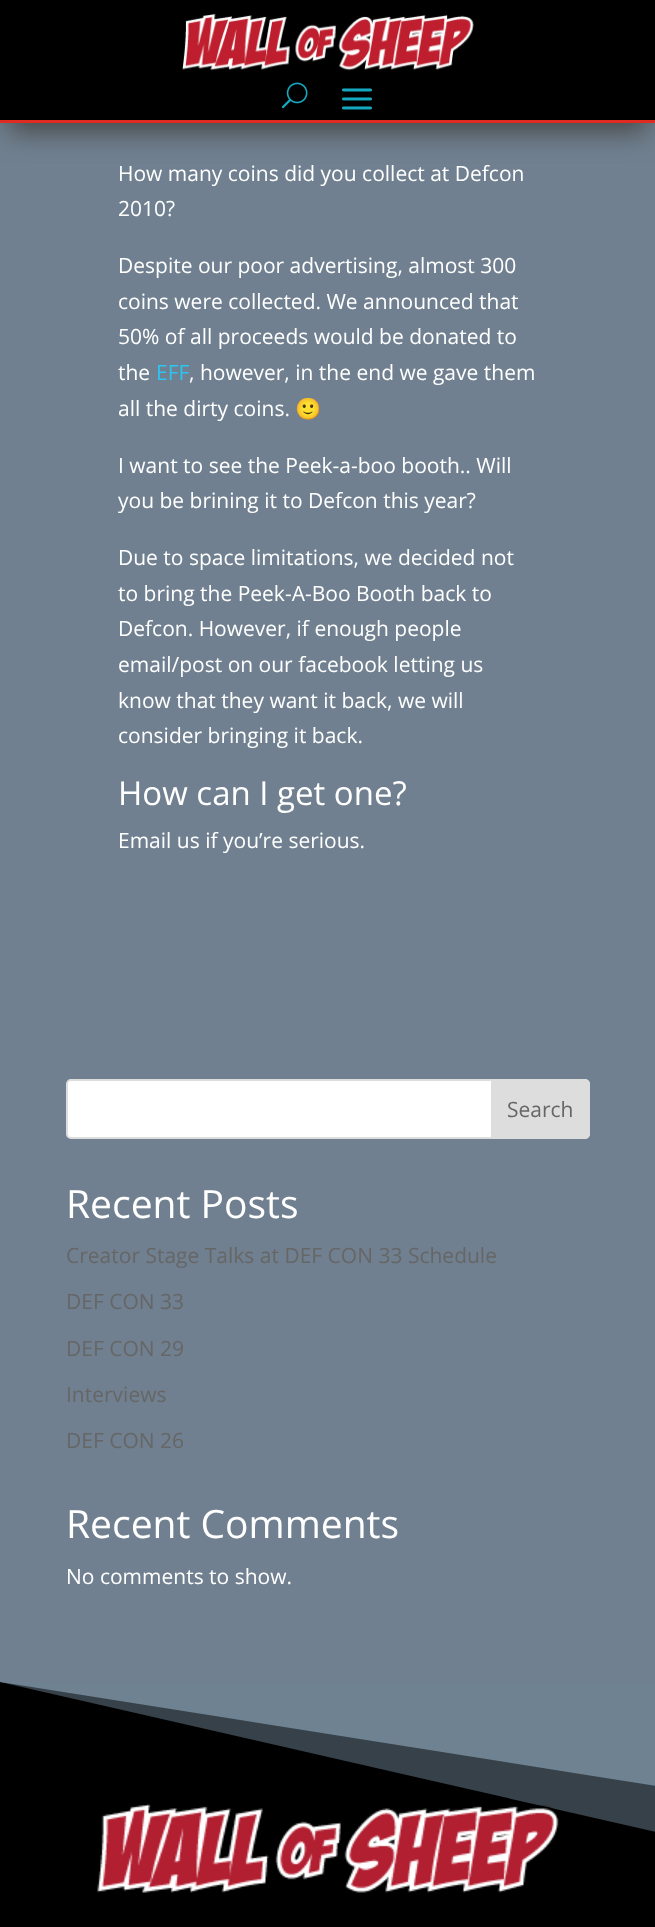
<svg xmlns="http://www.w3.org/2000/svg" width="655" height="1927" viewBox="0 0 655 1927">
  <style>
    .t1 { font: 21px Open Sans; fill: #fff; }
    .t2 { font: 21px Open Sans; fill: #2ec4f2; }
    .t3 { font: 21px Noto Color Emoji; fill: #fff; }
    .t4 { font: 33px Open Sans; fill: #fff; }
    .t5 { font: 21px Open Sans; fill: #666; }
    .t6 { font: 39px Open Sans; fill: #fff; }
  </style>
  <rect width="100%" height="100%" fill="#708090"/>
  <rect x="9" y="27" width="638" height="105" fill="#474747" filter="blur(13.5px)"/>
  <rect x="0" y="0" width="655" height="120" fill="#000"/>
  <rect x="0" y="120" width="655" height="3" fill="#e02b20"/>
  <image x="182" y="14" width="292" height="57" href="images/1.png"/>
  <image x="281" y="82" width="27" height="27" href="images/2.png"/>
  <image x="342" y="88" width="30" height="22" href="images/3.png"/>
  <text x="118" y="181" class="t1">How many coins did you collect at Defcon</text>
  <text x="118" y="216" class="t1">2010?</text>
  <text x="118" y="273" class="t1">Despite our poor advertising, almost 300</text>
  <text x="118" y="309" class="t1">coins were collected. We announced that</text>
  <text x="118" y="344" class="t1">50% of all proceeds would be donated to</text>
  <text x="118" y="380" class="t1">the</text>
  <text x="156" y="380" class="t2">EFF</text>
  <text x="189" y="380" class="t1">, however, in the end we gave them</text>
  <text x="118" y="416" class="t1">all the dirty coins.</text>
  <text x="295" y="416" class="t3">🙂</text>
  <text x="118" y="473" class="t1">I want to see the Peek-a-boo booth.. Will</text>
  <text x="118" y="508" class="t1">you be brining it to Defcon this year?</text>
  <text x="118" y="565" class="t1">Due to space limitations, we decided not</text>
  <text x="118" y="601" class="t1">to bring the Peek-A-Boo Booth back to</text>
  <text x="118" y="636" class="t1">Defcon. However, if enough people</text>
  <text x="118" y="672" class="t1">email/post on our facebook letting us</text>
  <text x="118" y="708" class="t1">know that they want it back, we will</text>
  <text x="118" y="743" class="t1">consider bringing it back.</text>
  <text x="118" y="805" class="t4">How can I get one?</text>
  <text x="118" y="848" class="t1">Email us if you’re serious.</text>
  <rect x="67" y="1080" width="522" height="58" rx="4" fill="#fff" stroke="#ddd" stroke-width="2"/>
  <path d="M492 1080H585C587 1080 589 1082 589 1084V1134C589 1136 587 1138 585 1138H492Z" fill="#ddd" stroke="#ddd" stroke-width="2"/>
  <text x="507" y="1117" class="t5">Search</text>
  <text x="66" y="1218" class="t6">Recent Posts</text>
  <text x="66" y="1263" class="t5">Creator Stage Talks at DEF CON 33 Schedule</text>
  <text x="66" y="1309" class="t5">DEF CON 33</text>
  <text x="66" y="1356" class="t5">DEF CON 29</text>
  <text x="66" y="1402" class="t5">Interviews</text>
  <text x="66" y="1448" class="t5">DEF CON 26</text>
  <text x="66" y="1538" class="t6">Recent Comments</text>
  <text x="66" y="1584" class="t1">No comments to show.</text>
  <rect x="0" y="1682" width="655" height="245" fill="#000"/>
  <path d="M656 1832V1682H0Z" fill="#374149"/>
  <path d="M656 1786V1682H0Z" fill="#6e8291"/>
  <image x="97" y="1803" width="462" height="90" href="images/4.png"/>
</svg>
